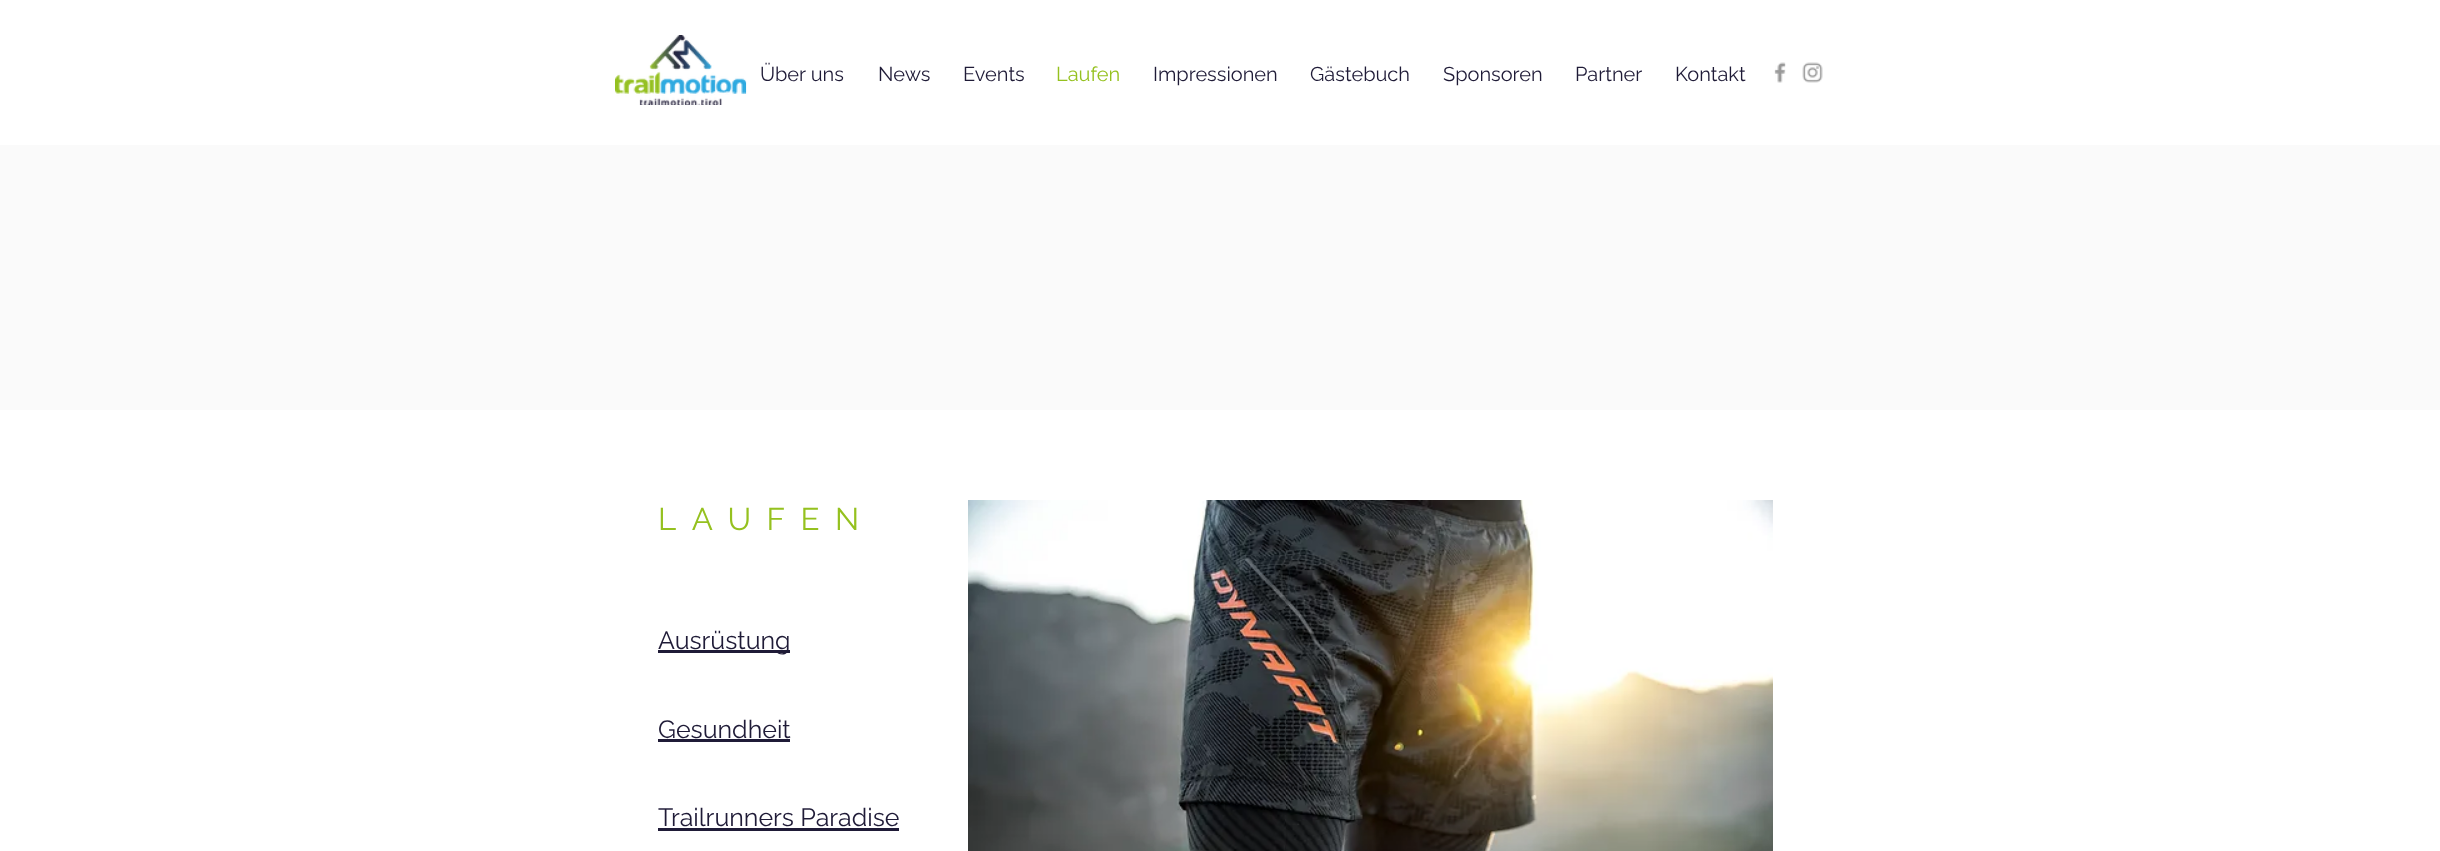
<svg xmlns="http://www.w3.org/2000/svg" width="2440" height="851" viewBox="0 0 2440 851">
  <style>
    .t1 { font: 20px Raleway; fill: #1f1b37; }
    .t2 { font: 20px Raleway; fill: #95c11f; }
    .t3 { font: 31.25px Raleway; letter-spacing: 15.5px; fill: #95c11f; }
    .t4 { font: 25px Raleway; fill: #1f1b37; }
  </style>
  <rect width="100%" height="100%" fill="#fff"/>
  <image x="615" y="35" width="132" height="70" href="images/1.png"/>
  <text x="760" y="81" class="t1">Über uns</text>
  <text x="878" y="81" class="t1">News</text>
  <text x="963" y="81" class="t1">Events</text>
  <text x="1056" y="81" class="t2">Laufen</text>
  <text x="1153" y="81" class="t1">Impressionen</text>
  <text x="1310" y="81" class="t1">Gästebuch</text>
  <text x="1443" y="81" class="t1">Sponsoren</text>
  <text x="1575" y="81" class="t1">Partner</text>
  <text x="1675" y="81" class="t1">Kontakt</text>
  <image x="1774" y="62" width="12" height="21" href="images/2.png"/>
  <image x="1802" y="62" width="21" height="21" href="images/3.png"/>
  <rect x="0" y="145" width="2440" height="265" fill="#fafafa"/>
  <text x="658" y="530" class="t3">LAUFEN</text>
  <image x="968" y="500" width="805" height="351" href="images/4.png"/>
  <rect x="658" y="650" width="132" height="3" fill="#1f1b37"/>
  <text x="658" y="649" class="t4">Ausrüstung</text>
  <text x="658" y="738" class="t4">Gesundheit</text>
  <rect x="658" y="739" width="132" height="3" fill="#1f1b37"/>
  <text x="658" y="826" class="t4">T</text>
  <rect x="658" y="828" width="241" height="3" fill="#1f1b37"/>
  <text x="671" y="826" class="t4">railrunners Paradise</text>
</svg>
